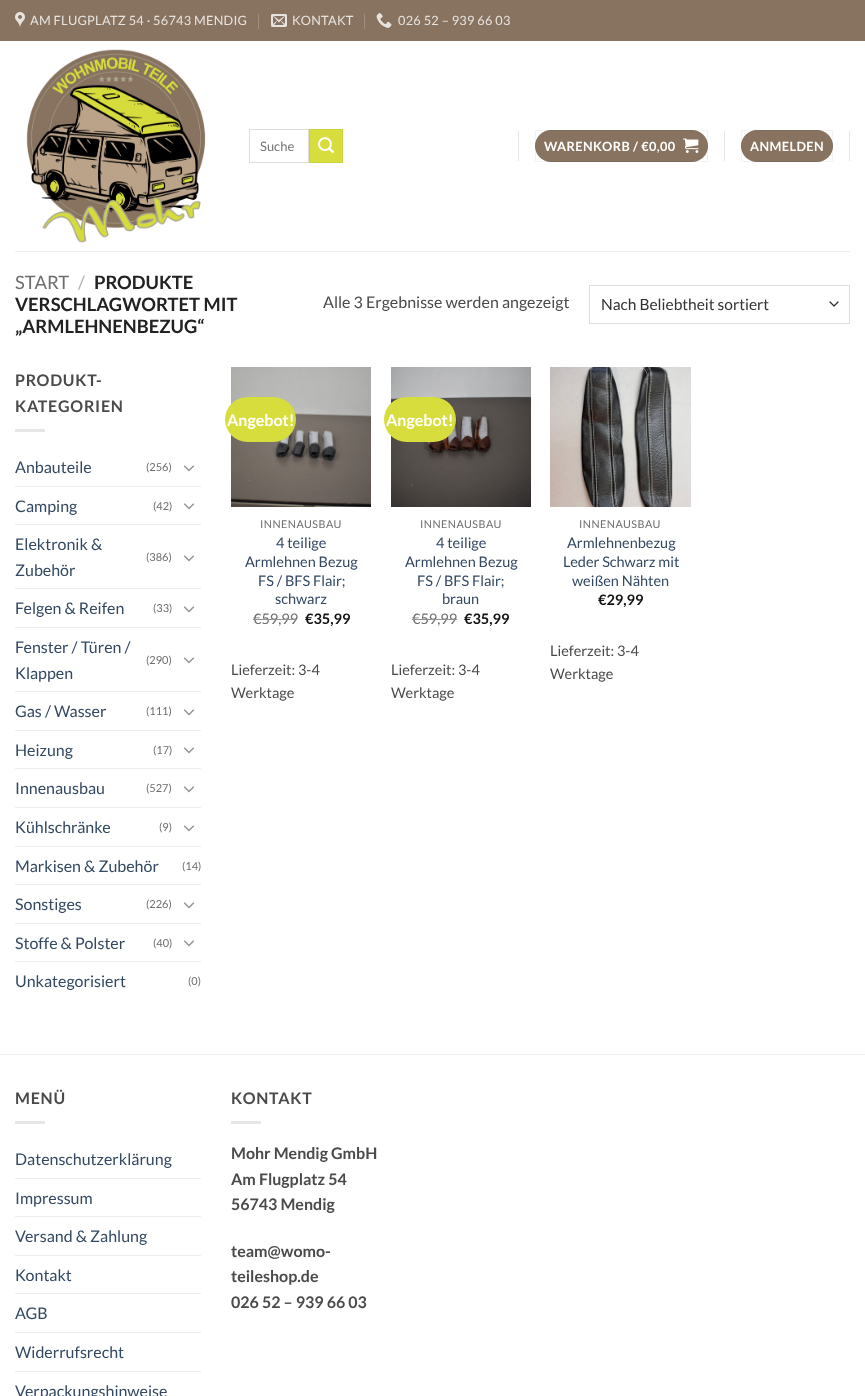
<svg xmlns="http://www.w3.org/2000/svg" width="865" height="1396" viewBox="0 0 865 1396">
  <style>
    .t1 { font: 12.75px Lato; letter-spacing: 0.25px; fill: #e7e3df; }
    .t2 { font: 13px Lato; fill: #757575; }
    .t3 { font: bold 12.75px Lato; letter-spacing: 0.4px; fill: #fff; }
    .t4 { font: 18.4px Lato; fill: #6e6e6e; }
    .t5 { font: 18.4px Lato; fill: #b2b2b2; }
    .t6 { font: bold 18.4px Lato; fill: #222; }
    .t7 { font: 16px Lato; fill: #4a4a4a; }
    .t8 { font: 15.5px Lato; fill: #333; }
    .t9 { font: bold 16px Lato; letter-spacing: 0.75px; fill: #4a4a4a; }
    .t10 { font: 16px Lato; fill: #334862; }
    .t11 { font: 11px Lato; fill: #6e6e6e; }
    .t12 { font: bold 16px Lato; fill: #fff; }
    .t13 { font: 10.75px Lato; letter-spacing: 0.5px; fill: #6e6e6e; }
    .t14 { font: 14.5px Lato; fill: #334862; }
    .t15 { font: 14.5px Lato; fill: #6e6e6e; }
    .t16 { font: bold 14.5px Lato; fill: #111; }
    .t17 { font: 14.5px Lato; fill: #4a4a4a; }
    .t18 { font: bold 16px Lato; fill: #4a4a4a; }
  </style>
  <rect width="100%" height="100%" fill="#fff"/>
  <rect x="0" y="0" width="865" height="41" fill="#887360"/>
  <image x="15" y="12" width="10" height="16" href="images/1.png"/>
  <text x="30" y="25" class="t1">AM FLUGPLATZ 54 · 56743 MENDIG</text>
  <rect x="258" y="14" width="1" height="15" fill="#a08f80"/>
  <image x="271" y="14" width="16" height="13" href="images/2.png"/>
  <text x="292" y="25" class="t1">KONTAKT</text>
  <rect x="364" y="14" width="1" height="15" fill="#a08f80"/>
  <image x="376" y="13" width="16" height="15" href="images/3.png"/>
  <text x="398" y="25" class="t1">026 52 – 939 66 03</text>
  <image x="26" y="49" width="180" height="194" href="images/4.png"/>
  <rect x="249.5" y="129.5" width="59" height="33" fill="none" stroke="#ddd"/>
  <text x="260" y="151" class="t2">Suche</text>
  <rect x="309.5" y="129.5" width="33" height="33" fill="#d7dd3c" stroke="#ccd239"/>
  <image x="318" y="137" width="16" height="16" href="images/5.png"/>
  <rect x="518" y="131" width="1" height="30" fill="#e6e6e6"/>
  <rect x="535" y="130" width="173" height="32" rx="16" fill="#887360"/>
  <rect x="535.5" y="130.5" width="172" height="31" fill="none" stroke="#0000000d"/>
  <text x="544" y="151" class="t3">WARENKORB / €0,00</text>
  <image x="683" y="138" width="16" height="15" href="images/6.png"/>
  <rect x="724" y="131" width="1" height="30" fill="#e6e6e6"/>
  <rect x="741" y="130" width="92" height="32" rx="16" fill="#887360"/>
  <rect x="741.5" y="130.5" width="91" height="31" fill="none" stroke="#0000000d"/>
  <text x="750" y="151" class="t3">ANMELDEN</text>
  <rect x="849" y="131" width="1" height="30" fill="#e6e6e6"/>
  <rect x="15" y="251" width="835" height="1" fill="#ededed"/>
  <text x="15" y="289" class="t4">START</text>
  <text x="78" y="289" class="t5">/</text>
  <text x="94" y="289" class="t6">PRODUKTE</text>
  <text x="15" y="311" class="t6">VERSCHLAGWORTET MIT</text>
  <text x="15" y="333" class="t6">„ARMLEHNENBEZUG“</text>
  <text x="323" y="308" class="t7">Alle 3 Ergebnisse werden angezeigt</text>
  <path d="M830 302L834 306L838 302" fill="none" stroke="#333" stroke-width="1.3" stroke-linecap="round" stroke-linejoin="round"/>
  <rect x="589.5" y="285.5" width="260" height="38" fill="none" stroke="#ddd"/>
  <text x="601" y="310" class="t8">Nach Beliebtheit sortiert</text>
  <text x="15" y="386" class="t9">PRODUKT-</text>
  <text x="15" y="412" class="t9">KATEGORIEN</text>
  <rect x="15" y="429" width="30" height="3" fill="#e6e6e6"/>
  <text x="15" y="473" class="t10">Anbauteile</text>
  <text x="146" y="471" class="t11">(256)</text>
  <image x="183" y="465" width="12" height="7" href="images/7.png"/>
  <rect x="15" y="486" width="186" height="1" fill="#ececec"/>
  <text x="15" y="512" class="t10">Camping</text>
  <text x="153" y="510" class="t11">(42)</text>
  <image x="183" y="503" width="12" height="7" href="images/7.png"/>
  <rect x="15" y="524" width="186" height="1" fill="#ececec"/>
  <text x="15" y="550" class="t10">Elektronik &amp;</text>
  <text x="15" y="576" class="t10">Zubehör</text>
  <text x="146" y="561" class="t11">(386)</text>
  <image x="183" y="555" width="12" height="7" href="images/7.png"/>
  <rect x="15" y="588" width="186" height="1" fill="#ececec"/>
  <text x="15" y="614" class="t10">Felgen &amp; Reifen</text>
  <text x="153" y="612" class="t11">(33)</text>
  <image x="183" y="606" width="12" height="7" href="images/7.png"/>
  <rect x="15" y="627" width="186" height="1" fill="#ececec"/>
  <text x="15" y="653" class="t10">Fenster / Türen /</text>
  <text x="15" y="679" class="t10">Klappen</text>
  <text x="146" y="664" class="t11">(290)</text>
  <image x="183" y="657" width="12" height="7" href="images/7.png"/>
  <rect x="15" y="691" width="186" height="1" fill="#ececec"/>
  <text x="15" y="717" class="t10">Gas / Wasser</text>
  <text x="146" y="715" class="t11">(111)</text>
  <image x="183" y="709" width="12" height="7" href="images/7.png"/>
  <rect x="15" y="730" width="186" height="1" fill="#ececec"/>
  <text x="15" y="756" class="t10">Heizung</text>
  <text x="153" y="754" class="t11">(17)</text>
  <image x="183" y="747" width="12" height="7" href="images/7.png"/>
  <rect x="15" y="768" width="186" height="1" fill="#ececec"/>
  <text x="15" y="794" class="t10">Innenausbau</text>
  <text x="146" y="792" class="t11">(527)</text>
  <image x="183" y="786" width="12" height="7" href="images/7.png"/>
  <rect x="15" y="807" width="186" height="1" fill="#ececec"/>
  <text x="15" y="833" class="t10">Kühlschränke</text>
  <text x="159" y="831" class="t11">(9)</text>
  <image x="183" y="825" width="12" height="7" href="images/7.png"/>
  <rect x="15" y="846" width="186" height="1" fill="#ececec"/>
  <text x="15" y="872" class="t10">Markisen &amp; Zubehör</text>
  <text x="182" y="870" class="t11">(14)</text>
  <rect x="15" y="884" width="186" height="1" fill="#ececec"/>
  <text x="15" y="910" class="t10">Sonstiges</text>
  <text x="146" y="908" class="t11">(226)</text>
  <image x="183" y="902" width="12" height="7" href="images/7.png"/>
  <rect x="15" y="923" width="186" height="1" fill="#ececec"/>
  <text x="15" y="949" class="t10">Stoffe &amp; Polster</text>
  <text x="153" y="947" class="t11">(40)</text>
  <image x="183" y="940" width="12" height="7" href="images/7.png"/>
  <rect x="15" y="961" width="186" height="1" fill="#ececec"/>
  <text x="15" y="987" class="t10">Unkategorisiert</text>
  <text x="188" y="985" class="t11">(0)</text>
  <image x="231" y="367" width="140" height="140" href="images/8.png"/>
  <rect x="225" y="397" width="71" height="45" rx="22.5" fill="#d7dd3c"/>
  <text x="227" y="426" class="t12">Angebot!</text>
  <text x="260" y="528" class="t13">INNENAUSBAU</text>
  <text x="276" y="548" class="t14">4 teilige</text>
  <text x="245" y="567" class="t14">Armlehnen Bezug</text>
  <text x="258" y="586" class="t14">FS / BFS Flair;</text>
  <text x="275" y="604" class="t14">schwarz</text>
  <text x="253" y="624" class="t15">€59,99</text>
  <rect x="253" y="619" width="44" height="1" fill="#929292"/>
  <text x="305" y="624" class="t16">€35,99</text>
  <text x="231" y="675" class="t17">Lieferzeit: 3-4</text>
  <text x="231" y="698" class="t17">Werktage</text>
  <image x="391" y="367" width="140" height="140" href="images/9.png"/>
  <rect x="384" y="397" width="72" height="45" rx="22.5" fill="#d7dd3c"/>
  <text x="386" y="426" class="t12">Angebot!</text>
  <text x="420" y="528" class="t13">INNENAUSBAU</text>
  <text x="436" y="548" class="t14">4 teilige</text>
  <text x="405" y="567" class="t14">Armlehnen Bezug</text>
  <text x="417" y="586" class="t14">FS / BFS Flair;</text>
  <text x="442" y="604" class="t14">braun</text>
  <text x="412" y="624" class="t15">€59,99</text>
  <rect x="412" y="619" width="45" height="1" fill="#929292"/>
  <text x="464" y="624" class="t16">€35,99</text>
  <text x="391" y="675" class="t17">Lieferzeit: 3-4</text>
  <text x="391" y="698" class="t17">Werktage</text>
  <image x="550" y="367" width="141" height="140" href="images/10.png"/>
  <text x="579" y="528" class="t13">INNENAUSBAU</text>
  <text x="567" y="548" class="t14">Armlehnenbezug</text>
  <text x="563" y="567" class="t14">Leder Schwarz mit</text>
  <text x="572" y="586" class="t14">weißen Nähten</text>
  <text x="598" y="605" class="t16">€29,99</text>
  <text x="550" y="656" class="t17">Lieferzeit: 3-4</text>
  <text x="550" y="679" class="t17">Werktage</text>
  <rect x="0" y="1054" width="865" height="1" fill="#f2f2f2"/>
  <text x="15" y="1104" class="t9">MENÜ</text>
  <rect x="15" y="1121" width="30" height="3" fill="#e6e6e6"/>
  <text x="15" y="1165" class="t10">Datenschutzerklärung</text>
  <rect x="15" y="1178" width="186" height="1" fill="#ececec"/>
  <text x="15" y="1204" class="t10">Impressum</text>
  <rect x="15" y="1216" width="186" height="1" fill="#ececec"/>
  <text x="15" y="1242" class="t10">Versand &amp; Zahlung</text>
  <rect x="15" y="1255" width="186" height="1" fill="#ececec"/>
  <text x="15" y="1281" class="t10">Kontakt</text>
  <rect x="15" y="1293" width="186" height="1" fill="#ececec"/>
  <text x="15" y="1319" class="t10">AGB</text>
  <rect x="15" y="1332" width="186" height="1" fill="#ececec"/>
  <text x="15" y="1358" class="t10">Widerrufsrecht</text>
  <rect x="15" y="1371" width="186" height="1" fill="#ececec"/>
  <text x="15" y="1397" class="t10">Verpackungshinweise</text>
  <text x="231" y="1104" class="t9">KONTAKT</text>
  <rect x="231" y="1121" width="30" height="3" fill="#e6e6e6"/>
  <text x="231" y="1159" class="t18">Mohr Mendig GmbH</text>
  <text x="231" y="1185" class="t18">Am Flugplatz 54</text>
  <text x="231" y="1210" class="t18">56743 Mendig</text>
  <text x="231" y="1257" class="t18">team@womo-</text>
  <text x="231" y="1282" class="t18">teileshop.de</text>
  <text x="231" y="1308" class="t18">026 52 – 939 66 03</text>
</svg>
